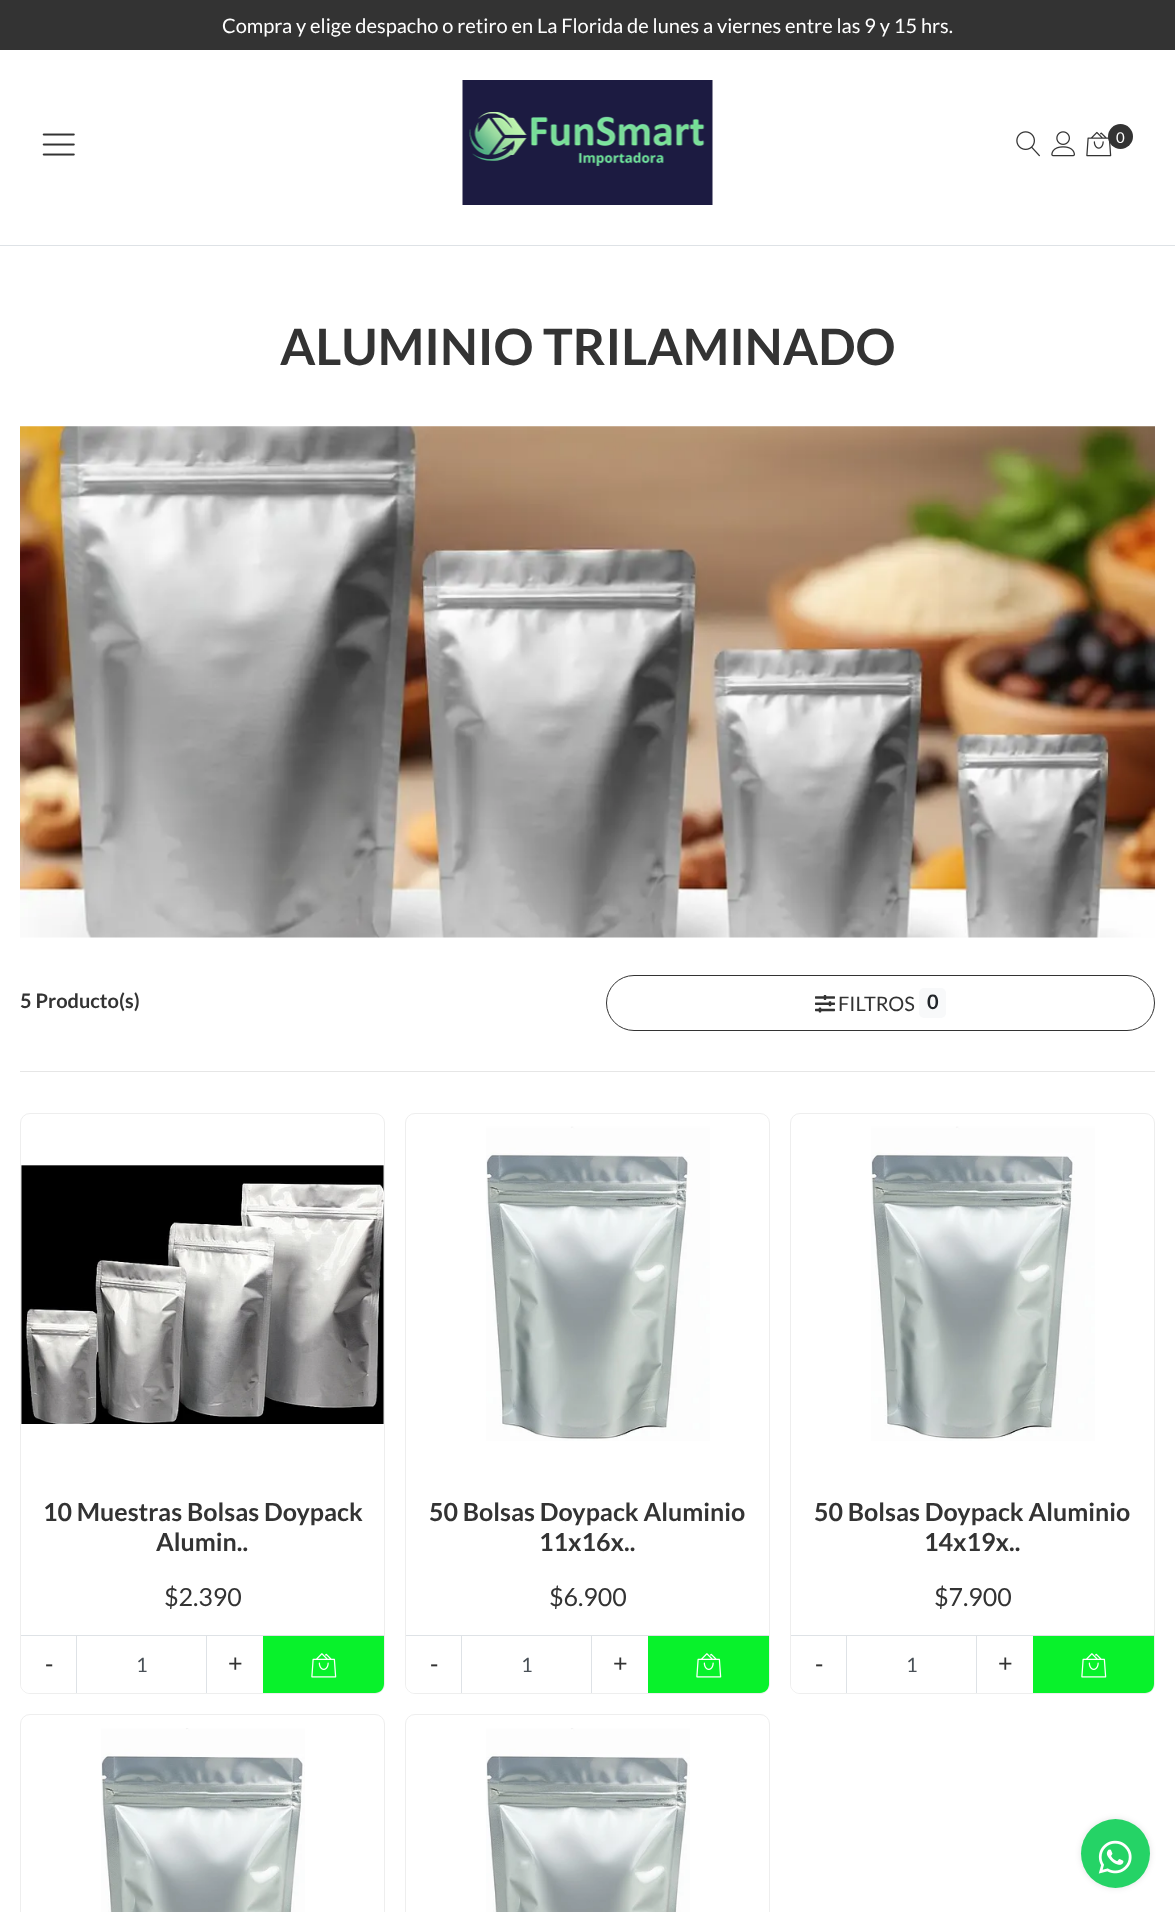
<svg xmlns="http://www.w3.org/2000/svg" width="1175" height="1912" viewBox="0 0 1175 1912">
  <style>
    .t1 { font: 20px Lato; fill: #fff; }
    .t2 { font: 15px Lato; fill: #fff; }
    .t3 { font: bold 50px Lato; fill: #333; }
    .t4 { font: bold 20px Lato; fill: #333; }
    .t5 { font: 20px Lato; fill: #333; }
    .t6 { font: bold 20px Lato; fill: #212529; }
    .t7 { font: bold 25px Lato; fill: #333; }
    .t8 { font: 25px Lato; fill: #333; }
    .t9 { font: 25px Liberation Sans; fill: #333; }
    .t10 { font: 20px Lato; fill: #495057; }
  </style>
  <rect width="100%" height="100%" fill="#fff"/>
  <rect x="0" y="245" width="1175" height="1" fill="#dee2e6"/>
  <rect x="0" y="0" width="1175" height="50" fill="#333"/>
  <text x="222" y="33" class="t1">Compra y elige despacho o retiro en La Florida de lunes a viernes entre las 9 y 15 hrs.</text>
  <image x="42" y="133" width="33" height="23" href="images/1.png"/>
  <image x="462" y="80" width="251" height="125" href="images/2.png"/>
  <image x="1016" y="131" width="24" height="26" href="images/3.png"/>
  <image x="1051" y="131" width="24" height="26" href="images/4.png"/>
  <image x="1086" y="131" width="26" height="26" href="images/5.png"/>
  <circle cx="1120.5" cy="136.5" r="12.5" fill="#333"/>
  <text x="1116" y="143" class="t2">0</text>
  <text x="280" y="365" class="t3">ALUMINIO TRILAMINADO</text>
  <image x="20" y="426" width="1135" height="512" href="images/6.png"/>
  <text x="20" y="1008" class="t4">5 Producto(s)</text>
  <rect x="606.5" y="975.5" width="548" height="55" rx="27.5" fill="none" stroke="#333"/>
  <image x="815" y="995" width="20" height="18" href="images/7.png"/>
  <text x="838" y="1011" class="t5">FILTROS</text>
  <rect x="919" y="988" width="27" height="30" rx="5" fill="#f8f9fa"/>
  <text x="927" y="1009" class="t6">0</text>
  <rect x="20" y="1071" width="1135" height="1" fill="#e6e6e6"/>
  <rect x="20.5" y="1113.5" width="364" height="580" rx="9.5" fill="none" stroke="#eee"/>
  <image x="21" y="1165" width="363" height="259" href="images/8.png"/>
  <text x="43" y="1521" class="t7">10 Muestras Bolsas Doypack</text>
  <text x="156" y="1551" class="t7">Alumin..</text>
  <text x="164" y="1606" class="t8">$2.390</text>
  <rect x="21" y="1635" width="363" height="1" fill="#dee2e6"/>
  <path d="M21 1636H263V1693H30C25 1693 21 1689 21 1684Z" fill="#fff"/>
  <rect x="76" y="1636" width="1" height="57" fill="#dee2e6"/>
  <text x="45" y="1672" class="t9">-</text>
  <rect x="206" y="1636" width="1" height="57" fill="#dee2e6"/>
  <text x="228" y="1672" class="t9">+</text>
  <text x="136" y="1672" class="t10">1</text>
  <path d="M263 1636H384V1684C384 1689 380 1693 375 1693H263Z" fill="#08f22b"/>
  <image x="311" y="1653" width="26" height="25" href="images/9.png"/>
  <rect x="405.5" y="1113.5" width="364" height="580" rx="9.5" fill="none" stroke="#eee"/>
  <image x="486" y="1126" width="224" height="315" href="images/10.png"/>
  <text x="429" y="1521" class="t7">50 Bolsas Doypack Aluminio</text>
  <text x="539" y="1551" class="t7">11x16x..</text>
  <text x="549" y="1606" class="t8">$6.900</text>
  <rect x="406" y="1635" width="363" height="1" fill="#dee2e6"/>
  <path d="M406 1636H648V1693H415C410 1693 406 1689 406 1684Z" fill="#fff"/>
  <rect x="461" y="1636" width="1" height="57" fill="#dee2e6"/>
  <text x="430" y="1672" class="t9">-</text>
  <rect x="591" y="1636" width="1" height="57" fill="#dee2e6"/>
  <text x="613" y="1672" class="t9">+</text>
  <text x="521" y="1672" class="t10">1</text>
  <path d="M648 1636H769V1684C769 1689 765 1693 760 1693H648Z" fill="#08f22b"/>
  <image x="696" y="1653" width="26" height="25" href="images/9.png"/>
  <rect x="790.5" y="1113.5" width="364" height="580" rx="9.5" fill="none" stroke="#eee"/>
  <image x="871" y="1126" width="224" height="315" href="images/11.png"/>
  <text x="814" y="1521" class="t7">50 Bolsas Doypack Aluminio</text>
  <text x="924" y="1551" class="t7">14x19x..</text>
  <text x="934" y="1606" class="t8">$7.900</text>
  <rect x="791" y="1635" width="363" height="1" fill="#dee2e6"/>
  <path d="M791 1636H1033V1693H800C795 1693 791 1689 791 1684Z" fill="#fff"/>
  <rect x="846" y="1636" width="1" height="57" fill="#dee2e6"/>
  <text x="815" y="1672" class="t9">-</text>
  <rect x="976" y="1636" width="1" height="57" fill="#dee2e6"/>
  <text x="998" y="1672" class="t9">+</text>
  <text x="906" y="1672" class="t10">1</text>
  <path d="M1033 1636H1154V1684C1154 1689 1150 1693 1145 1693H1033Z" fill="#08f22b"/>
  <image x="1081" y="1653" width="26" height="25" href="images/9.png"/>
  <rect x="20.5" y="1714.5" width="364" height="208" rx="9.5" fill="none" stroke="#eee"/>
  <image x="101" y="1728" width="204" height="184" href="images/12.png"/>
  <rect x="405.5" y="1714.5" width="364" height="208" rx="9.5" fill="none" stroke="#eee"/>
  <image x="486" y="1728" width="204" height="184" href="images/13.png"/>
  <rect x="1081" y="1819" width="69" height="69" rx="34.5" fill="#0000001c" filter="blur(3px)"/>
  <circle cx="1115.5" cy="1853.5" r="34.5" fill="#25d366"/>
  <image x="1098" y="1840" width="34" height="34" href="images/14.png"/>
</svg>
